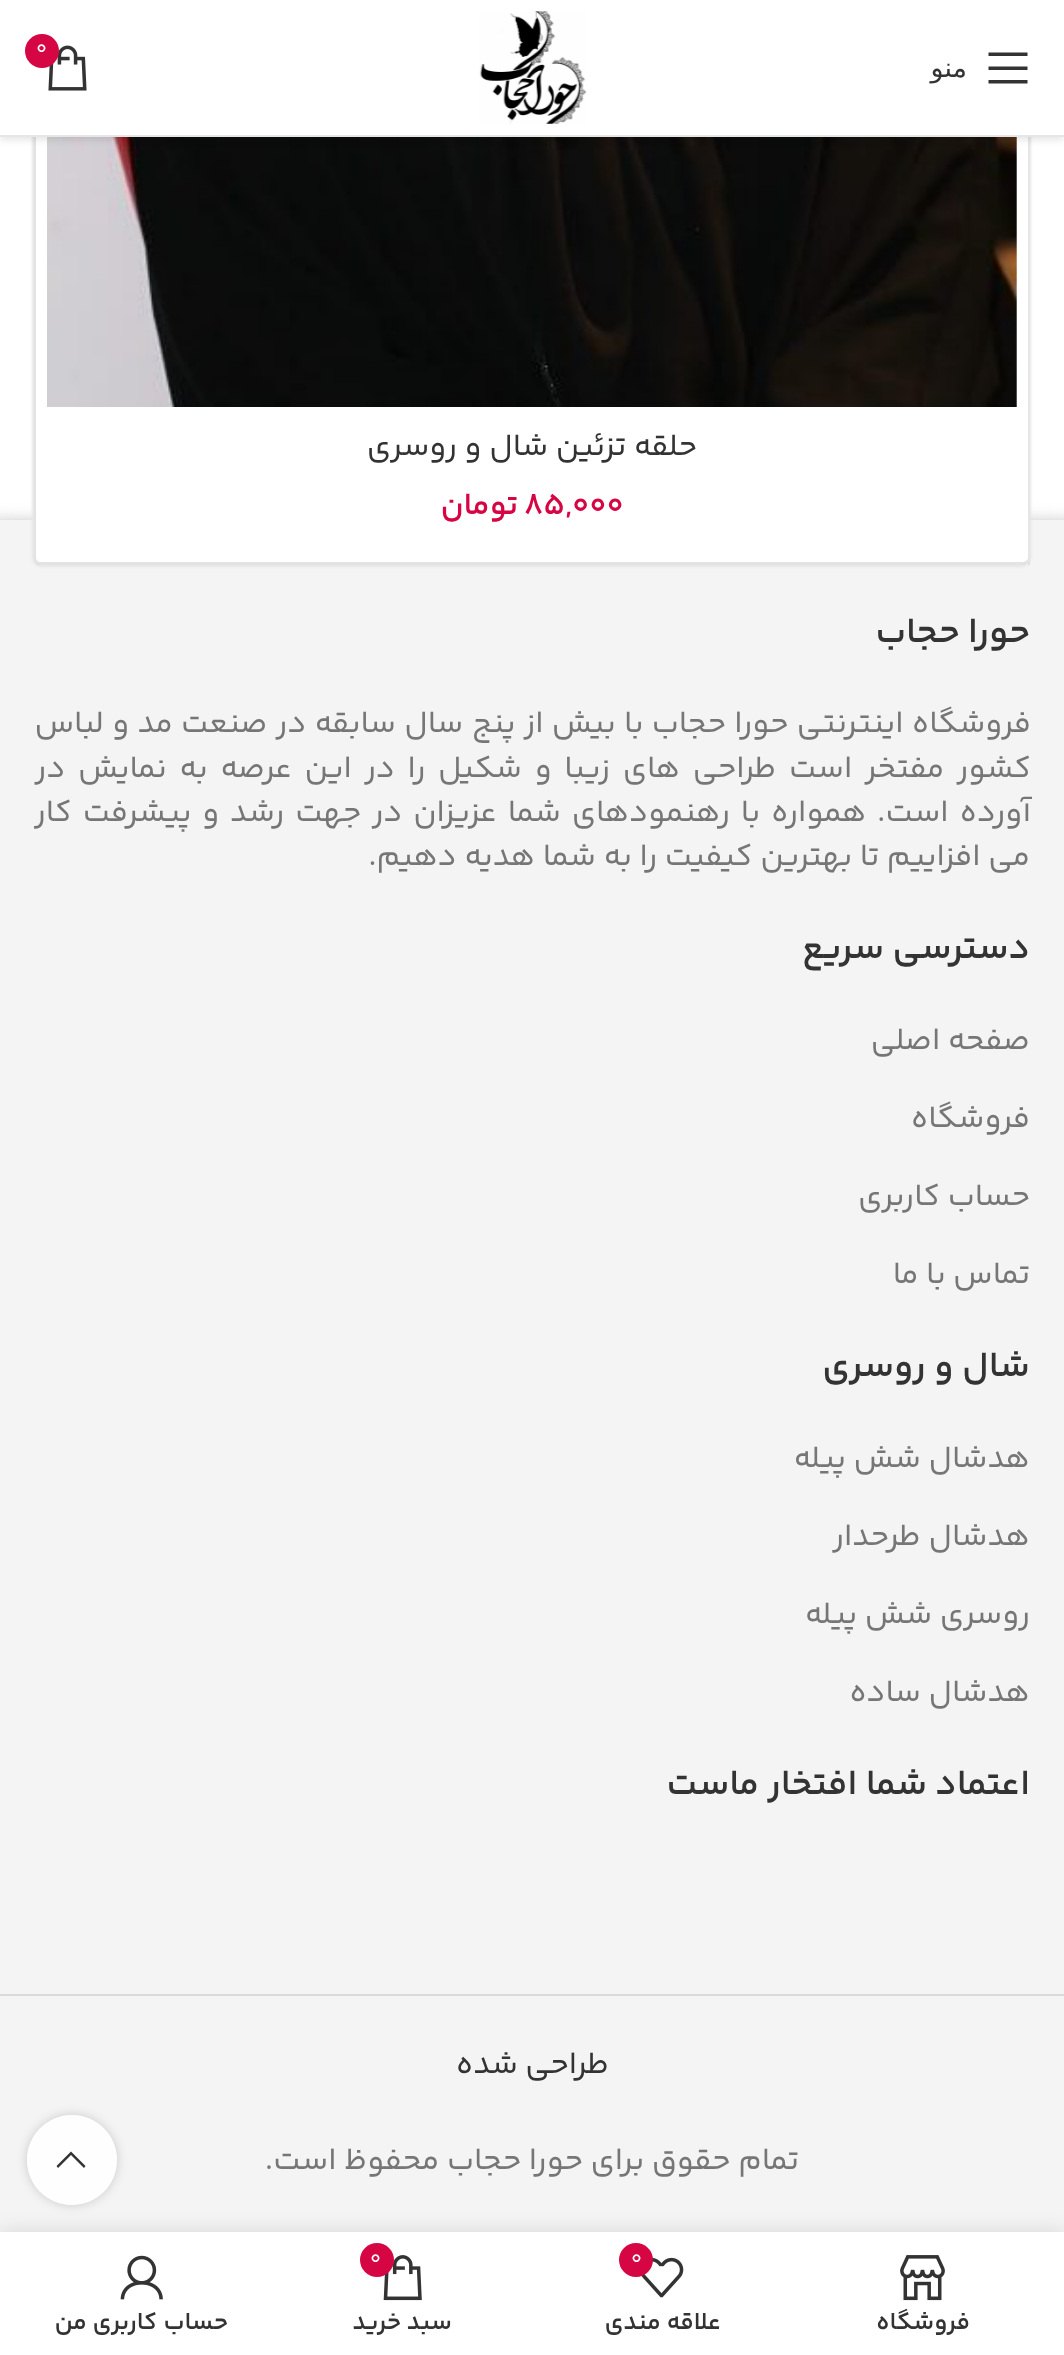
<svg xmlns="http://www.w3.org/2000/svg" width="1064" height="2355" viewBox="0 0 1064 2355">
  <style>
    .t1 { font: 20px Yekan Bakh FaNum; fill: #fff; }
    .t2 { font: 27px DejaVu Sans; direction: rtl; fill: #333; }
    .t3 { font: 31.5px Yekan Bakh FaNum; direction: rtl; fill: #333; }
    .t4 { font: 600 31.5px Yekan Bakh FaNum; fill: #d60644; }
    .t5 { font: 600 31.5px Yekan Bakh FaNum; direction: rtl; fill: #d60644; }
    .t6 { font: 600 36px Yekan Bakh FaNum; direction: rtl; fill: #333; }
    .t7 { font: 31.5px Yekan Bakh FaNum; direction: rtl; fill: #767676; }
    .t8 { font: 600 24.75px Yekan Bakh FaNum; direction: rtl; fill: #333; }
  </style>
  <defs>
    <clipPath id="clip1"><path d="M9 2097H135V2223H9ZM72 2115C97 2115 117 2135 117 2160C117 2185 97 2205 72 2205C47 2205 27 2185 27 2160C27 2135 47 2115 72 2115Z" clip-rule="evenodd"/></clipPath>
  </defs>
  <rect width="100%" height="100%" fill="#fff"/>
  <rect x="-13" y="529" width="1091" height="1739" fill="#777" filter="blur(11px)"/>
  <rect x="0" y="520" width="1064" height="1712" fill="#f4f4f4"/>
  <rect x="1028" y="137" width="2" height="428" fill="#0000001c"/>
  <rect x="32" y="-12" width="999" height="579" rx="9" fill="#e6e6e6" filter="blur(1px)"/>
  <rect x="34" y="-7" width="994" height="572" rx="7" fill="#fff"/>
  <path d="M40-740H1022C1025-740 1028-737 1028-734V558C1028 562 1025 565 1022 565H40C37 565 34 562 34 558V-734C34-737 37-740 40-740ZM40-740H1022C1025-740 1028-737 1028-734V558C1028 560 1025 562 1022 562H40C38 562 36 560 36 558V-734C36-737 38-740 40-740Z" fill="#0000001c" fill-rule="evenodd"/>
  <image x="47" y="137" width="970" height="270" href="images/3.png"/>
  <rect x="0" y="2" width="1064" height="138" fill="#0000001a" filter="blur(3.5px)"/>
  <rect x="0" y="0" width="1064" height="135" fill="#fff"/>
  <rect x="0" y="135" width="1064" height="2" fill="#e6e6e6"/>
  <image x="479" y="11" width="108" height="113" href="images/1.png"/>
  <image x="48" y="45" width="39" height="46" href="images/2.png"/>
  <circle cx="42" cy="51" r="17" fill="#d60644"/>
  <text x="36" y="54" class="t1">0</text>
  <path d="M988.5 56H1027.5V52.5H988.5ZM988.5 70H1027.5V66.5H988.5ZM988.5 83.5H1027.5V80H988.5Z" fill="#333"/>
  <text x="967" y="77" class="t2">منو</text>
  <text x="697" y="455" class="t3">حلقه تزئین شال و روسری</text>
  <text x="524" y="514" class="t4">۸۵,۰۰۰</text>
  <text x="518" y="514" class="t5">تومان</text>
  <text x="1030" y="642" class="t6">حورا حجاب</text>
  <text x="1031" y="732" word-spacing="0.75" class="t7">فروشگاه اینترنتی حورا حجاب با بیش از پنج سال سابقه در صنعت مد و لباس</text>
  <text x="1031" y="777" word-spacing="5.1" class="t7">کشور مفتخر است طراحی های زیبا و شکیل را در این عرصه به نمایش در</text>
  <text x="1031" y="821" word-spacing="3.25" class="t7">آورده است. همواره با رهنمودهای شما عزیزان در جهت رشد و پیشرفت کار</text>
  <text x="1030" y="865" class="t7">می افزاییم تا بهترین کیفیت را به شما هدیه دهیم.</text>
  <text x="1030" y="958" class="t6">دسترسی سریع</text>
  <text x="1030" y="1049" class="t7">صفحه اصلی</text>
  <text x="1030" y="1127" class="t7">فروشگاه</text>
  <text x="1030" y="1205" class="t7">حساب کاربری</text>
  <text x="1030" y="1283" class="t7">تماس با ما</text>
  <text x="1030" y="1376" class="t6">شال و روسری</text>
  <text x="1030" y="1467" class="t7">هدشال شش پیله</text>
  <text x="1030" y="1545" class="t7">هدشال طرحدار</text>
  <text x="1030" y="1623" class="t7">روسری شش پیله</text>
  <text x="1030" y="1701" class="t7">هدشال ساده</text>
  <text x="1030" y="1794" class="t6">اعتماد شما افتخار ماست</text>
  <rect x="0" y="1994" width="1064" height="2" fill="#dadada"/>
  <text x="609" y="2073" class="t3">طراحی</text>
  <text x="518" y="2073" class="t3">شده</text>
  <text x="799" y="2169" class="t7">تمام حقوق برای حورا حجاب محفوظ است.</text>
  <g clip-path="url(#clip1)">
    <rect x="27" y="2115" width="90" height="90" rx="45" fill="#0000002b" filter="blur(5.5px)"/>
  </g>
  <circle cx="72" cy="2160" r="45" fill="#ffffffe6"/>
  <path d="M84 2168L85.5 2166L71 2151.5L56.5 2166L58 2168L71 2155Z" fill="#333"/>
  <rect x="0" y="2232" width="1064" height="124" fill="#0000001f" filter="blur(10px)"/>
  <rect x="0" y="2232" width="1064" height="123" fill="#fff"/>
  <image x="900" y="2255" width="45" height="46" href="images/4.png"/>
  <text x="970" y="2329" class="t8">فروشگاه</text>
  <image x="641" y="2257" width="43" height="41" href="images/5.png"/>
  <circle cx="636" cy="2260" r="17" fill="#d60644"/>
  <text x="631" y="2264" class="t1">0</text>
  <text x="721" y="2329" class="t8">علاقه مندی</text>
  <image x="383" y="2255" width="39" height="46" href="images/6.png"/>
  <circle cx="377" cy="2260" r="17" fill="#d60644"/>
  <text x="370" y="2264" class="t1">0</text>
  <text x="452" y="2329" class="t8">سبد خرید</text>
  <image x="120" y="2255" width="43" height="45" href="images/7.png"/>
  <text x="228" y="2329" class="t8">حساب کاربری من</text>
</svg>
